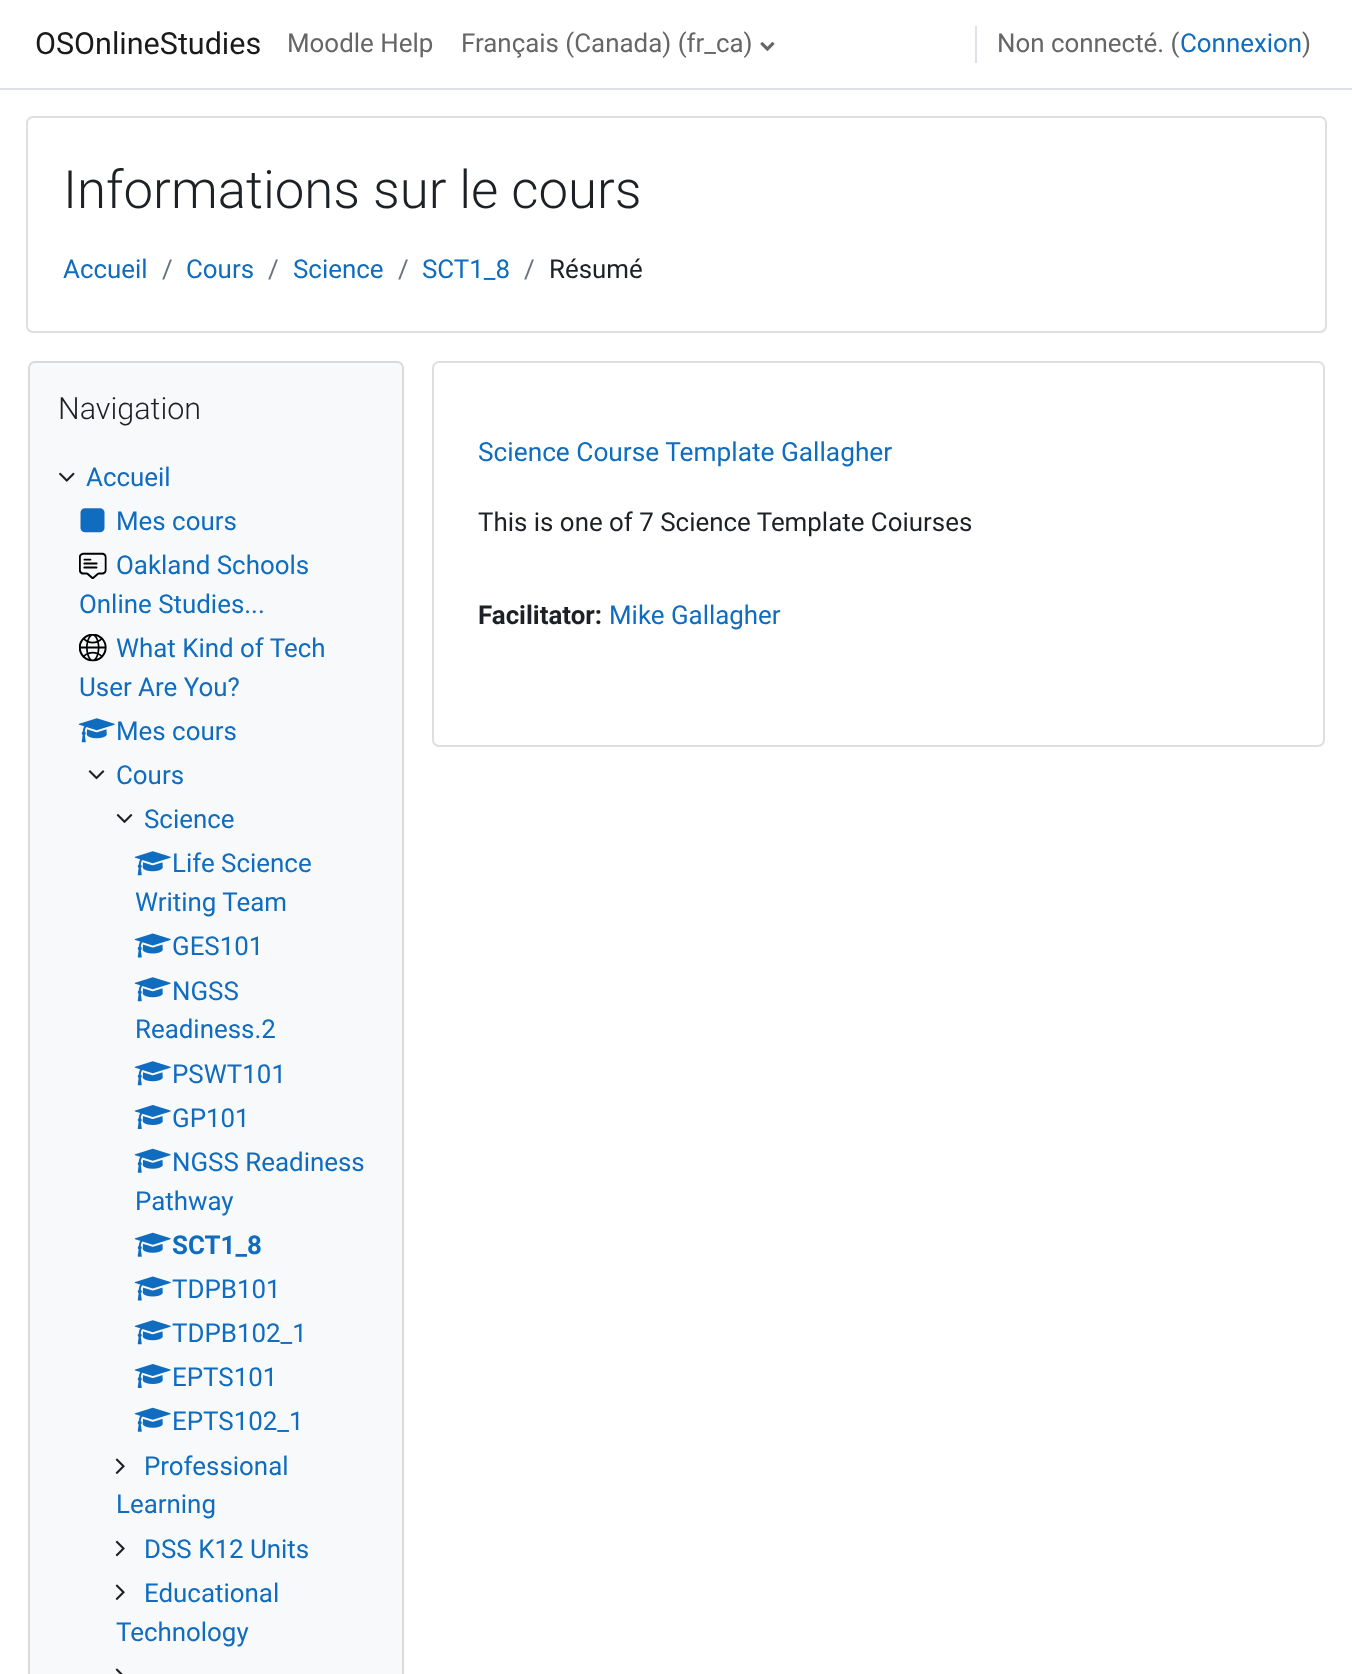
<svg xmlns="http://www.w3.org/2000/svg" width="1352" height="1674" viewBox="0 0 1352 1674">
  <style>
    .t1 { font: 30.5px Roboto; fill: #1a1a1a; }
    .t2 { font: 25.9px Roboto; fill: #666; }
    .t3 { font: 25.9px Roboto; fill: #0f6cbf; }
    .t4 { font: 300 52.75px Roboto; fill: #1d2125; }
    .t5 { font: 25.9px Roboto; fill: #6a737b; }
    .t6 { font: 25.9px Roboto; fill: #1d2125; }
    .t7 { font: 300 30.5px Roboto; fill: #1d2125; }
    .t8 { font: bold 25.9px Roboto; fill: #0f6cbf; }
    .t9 { font: 26.25px Roboto; fill: #0f6cbf; }
    .t10 { font: bold 25.9px Roboto; fill: #1d2125; }
  </style>
  <rect width="100%" height="100%" fill="#fff"/>
  <rect x="0" y="88" width="1352" height="2" fill="#dee2e6"/>
  <text x="35" y="54" class="t1">OSOnlineStudies</text>
  <text x="287" y="52" class="t2">Moodle Help</text>
  <text x="461" y="52" class="t2">Français (Canada) (fr_ca)</text>
  <image x="760" y="42" width="15" height="9" href="images/1.png"/>
  <rect x="975" y="26" width="2" height="37" fill="#dee2e6"/>
  <text x="997" y="52" class="t2">Non connecté. (</text>
  <text x="1180" y="52" class="t3">Connexion</text>
  <text x="1302" y="52" class="t2">)</text>
  <rect x="27" y="117" width="1299" height="215" rx="6" fill="none" stroke="#dfdfdf" stroke-width="2"/>
  <text x="63" y="208" class="t4">Informations sur le cours</text>
  <text x="63" y="278" class="t3">Accueil</text>
  <text x="162" y="278" class="t5">/</text>
  <text x="186" y="278" class="t3">Cours</text>
  <text x="268" y="278" class="t5">/</text>
  <text x="293" y="278" class="t3">Science</text>
  <text x="398" y="278" class="t5">/</text>
  <text x="422" y="278" class="t3">SCT1_8</text>
  <text x="524" y="278" class="t5">/</text>
  <text x="549" y="278" class="t6">Résumé</text>
  <rect x="28" y="361" width="376" height="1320" rx="7" fill="#f8f9fa"/>
  <rect x="29" y="362" width="374" height="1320" rx="6" fill="none" stroke="#0000001f" stroke-width="2"/>
  <text x="58" y="419" class="t7">Navigation</text>
  <image x="59" y="472" width="16" height="10" href="images/2.png"/>
  <text x="86" y="486" class="t3">Accueil</text>
  <image x="80" y="508" width="25" height="25" href="images/3.png"/>
  <text x="116" y="530" class="t3">Mes cours</text>
  <image x="79" y="552" width="28" height="27" href="images/4.png"/>
  <text x="116" y="574" class="t3">Oakland Schools</text>
  <text x="79" y="613" class="t3">Online Studies...</text>
  <image x="79" y="634" width="28" height="28" href="images/5.png"/>
  <text x="116" y="657" class="t3">What Kind of Tech</text>
  <text x="79" y="696" class="t3">User Are You?</text>
  <image x="78" y="718" width="37" height="25" href="images/6.png"/>
  <text x="116" y="740" class="t3">Mes cours</text>
  <image x="88" y="770" width="17" height="10" href="images/7.png"/>
  <text x="116" y="784" class="t3">Cours</text>
  <image x="116" y="814" width="17" height="9" href="images/8.png"/>
  <text x="144" y="828" class="t3">Science</text>
  <image x="134" y="851" width="37" height="25" href="images/6.png"/>
  <text x="172" y="872" class="t3">Life Science</text>
  <text x="135" y="911" class="t3">Writing Team</text>
  <image x="134" y="933" width="37" height="25" href="images/9.png"/>
  <text x="172" y="955" class="t3">GES101</text>
  <image x="134" y="977" width="37" height="25" href="images/6.png"/>
  <text x="172" y="1000" class="t3">NGSS</text>
  <text x="135" y="1038" class="t3">Readiness.2</text>
  <image x="134" y="1061" width="37" height="25" href="images/6.png"/>
  <text x="172" y="1083" class="t3">PSWT101</text>
  <image x="134" y="1105" width="37" height="24" href="images/10.png"/>
  <text x="172" y="1127" class="t3">GP101</text>
  <image x="134" y="1148" width="37" height="25" href="images/11.png"/>
  <text x="172" y="1171" class="t3">NGSS Readiness</text>
  <text x="135" y="1210" class="t3">Pathway</text>
  <image x="134" y="1232" width="37" height="25" href="images/11.png"/>
  <text x="172" y="1254" class="t8">SCT1_8</text>
  <image x="134" y="1276" width="37" height="25" href="images/9.png"/>
  <text x="172" y="1298" class="t3">TDPB101</text>
  <image x="134" y="1320" width="37" height="25" href="images/6.png"/>
  <text x="172" y="1342" class="t3">TDPB102_1</text>
  <image x="134" y="1364" width="37" height="24" href="images/10.png"/>
  <text x="172" y="1386" class="t3">EPTS101</text>
  <image x="134" y="1407" width="37" height="25" href="images/11.png"/>
  <text x="172" y="1430" class="t3">EPTS102_1</text>
  <image x="115" y="1458" width="10" height="16" href="images/12.png"/>
  <text x="144" y="1475" class="t3">Professional</text>
  <text x="116" y="1513" class="t3">Learning</text>
  <image x="115" y="1540" width="10" height="17" href="images/13.png"/>
  <text x="144" y="1558" class="t3">DSS K12 Units</text>
  <image x="115" y="1584" width="10" height="16" href="images/12.png"/>
  <text x="144" y="1602" class="t3">Educational</text>
  <text x="116" y="1641" class="t3">Technology</text>
  <image x="115" y="1668" width="8" height="6" href="images/14.png"/>
  <rect x="433" y="362" width="891" height="384" rx="6" fill="none" stroke="#dfdfdf" stroke-width="2"/>
  <text x="478" y="461" class="t9">Science Course Template Gallagher</text>
  <text x="478" y="531" class="t6">This is one of 7 Science Template Coiurses</text>
  <text x="478" y="624" class="t10">Facilitator:</text>
  <text x="609" y="624" class="t3">Mike Gallagher</text>
</svg>
